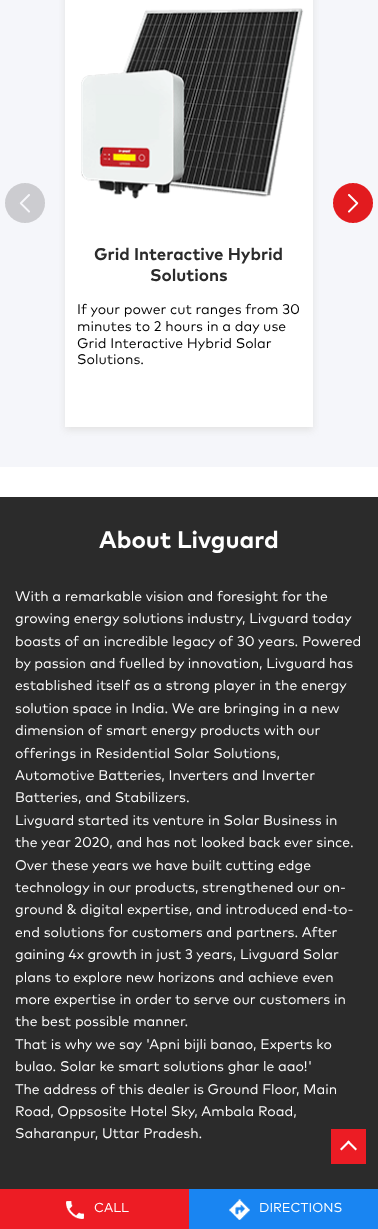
<svg xmlns="http://www.w3.org/2000/svg" width="378" height="1229" viewBox="0 0 378 1229">
  <style>
    .t1 { font: bold 17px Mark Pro; fill: #2b2b2b; }
    .t2 { font: 14px Mark Pro; fill: #000; }
    .t3 { font: bold 24px Mark Pro; fill: #fff; }
    .t4 { font: 14px Mark Pro; fill: #fff; }
    .t5 { font: 13px Mark Pro; fill: #fff; }
  </style>
  <rect width="100%" height="100%" fill="#fff"/>
  <rect x="0" y="0" width="378" height="467" fill="#f5f6fa"/>
  <image x="5" y="183" width="40" height="40" href="images/1.png"/>
  <image x="333" y="183" width="40" height="40" href="images/2.png"/>
  <rect x="65" y="-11" width="248" height="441" fill="#e2e2e2" filter="blur(3.5px)"/>
  <rect x="65" y="0" width="248" height="427" fill="#fff"/>
  <image x="81" y="8" width="223" height="191" href="images/3.png"/>
  <text x="94" y="260" class="t1">Grid Interactive Hybrid</text>
  <text x="150" y="281" class="t1">Solutions</text>
  <text x="77" y="314" class="t2">If your power cut ranges from 30</text>
  <text x="77" y="331" class="t2">minutes to 2 hours in a day use</text>
  <text x="77" y="348" class="t2">Grid Interactive Hybrid Solar</text>
  <text x="77" y="364" class="t2">Solutions.</text>
  <rect x="0" y="497" width="378" height="692" fill="#2b2b2b"/>
  <text x="99" y="548" class="t3">About Livguard</text>
  <text x="15" y="601" class="t4">With a remarkable vision and foresight for the</text>
  <text x="15" y="623" class="t4">growing energy solutions industry, Livguard today</text>
  <text x="15" y="646" class="t4">boasts of an incredible legacy of 30 years. Powered</text>
  <text x="15" y="668" class="t4">by passion and fuelled by innovation, Livguard has</text>
  <text x="15" y="690" class="t4">established itself as a strong player in the energy</text>
  <text x="15" y="713" class="t4">solution space in India. We are bringing in a new</text>
  <text x="15" y="735" class="t4">dimension of smart energy products with our</text>
  <text x="15" y="758" class="t4">offerings in Residential Solar Solutions,</text>
  <text x="15" y="780" class="t4">Automotive Batteries, Inverters and Inverter</text>
  <text x="15" y="802" class="t4">Batteries, and Stabilizers.</text>
  <text x="15" y="825" class="t4">Livguard started its venture in Solar Business in</text>
  <text x="15" y="847" class="t4">the year 2020, and has not looked back ever since.</text>
  <text x="15" y="870" class="t4">Over these years we have built cutting edge</text>
  <text x="15" y="892" class="t4">technology in our products, strengthened our on-</text>
  <text x="15" y="914" class="t4">ground &amp; digital expertise, and introduced end-to-</text>
  <text x="15" y="937" class="t4">end solutions for customers and partners. After</text>
  <text x="15" y="959" class="t4">gaining 4x growth in just 3 years, Livguard Solar</text>
  <text x="15" y="982" class="t4">plans to explore new horizons and achieve even</text>
  <text x="15" y="1004" class="t4">more expertise in order to serve our customers in</text>
  <text x="15" y="1026" class="t4">the best possible manner.</text>
  <text x="15" y="1049" class="t4">That is why we say 'Apni bijli banao, Experts ko</text>
  <text x="15" y="1071" class="t4">bulao. Solar ke smart solutions ghar le aao!'</text>
  <text x="15" y="1094" class="t4">The address of this dealer is Ground Floor, Main</text>
  <text x="15" y="1116" class="t4">Road, Oppsosite Hotel Sky, Ambala Road,</text>
  <text x="15" y="1138" class="t4">Saharanpur, Uttar Pradesh.</text>
  <rect x="0" y="1189" width="189" height="40" fill="#ed1c24"/>
  <image x="66" y="1201" width="18" height="18" href="images/4.png"/>
  <text x="94" y="1212" class="t5">CALL</text>
  <rect x="189" y="1189" width="189" height="40" fill="#1985f2"/>
  <image x="229" y="1199" width="21" height="21" href="images/5.png"/>
  <text x="259" y="1212" class="t5">DIRECTIONS</text>
  <rect x="331" y="1129" width="35" height="35" fill="#ec1c24"/>
  <path d="M341.5 1150.5L340 1149L348.5 1140.5L350 1142Z" fill="#fff"/>
  <path d="M355.5 1150.5L347 1142L348.5 1140.5L357 1149Z" fill="#fff"/>
</svg>
